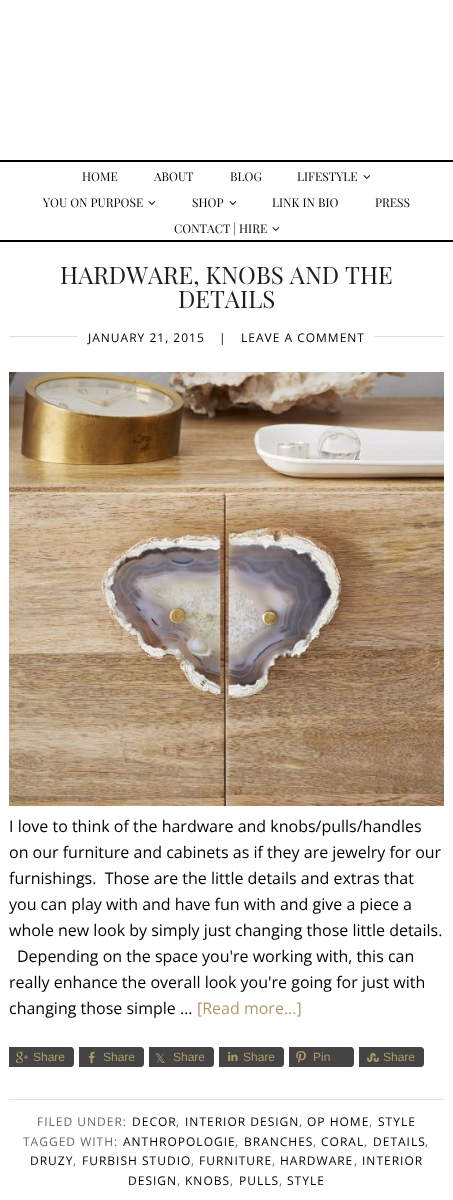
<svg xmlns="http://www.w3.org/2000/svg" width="453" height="1200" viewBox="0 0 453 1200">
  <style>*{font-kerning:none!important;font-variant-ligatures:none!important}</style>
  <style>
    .t1 { font: 12px Playfair Display; fill: #000; }
    .t2 { font: 24px Playfair Display; fill: #1e1e1e; }
    .t3 { font: 12px Open Sans; letter-spacing: 1px; fill: #000; }
    .t4 { font: 16px Open Sans; fill: #000; }
    .t5 { font: 16px Open Sans; fill: #b1996c; }
    .t6 { font: 12px Liberation Sans; fill: #b1996c; }
    .t7 { font: 13px DejaVu Sans; fill: #b1996c; }
    .t8 { font: 12px Open Sans; letter-spacing: 1px; fill: #666; }
  </style>
  <rect width="100%" height="100%" fill="#fff"/>
  <rect x="0" y="160" width="453" height="2" fill="#000"/>
  <rect x="0" y="240" width="453" height="2" fill="#000"/>
  <text x="82" y="181" class="t1">HOME</text>
  <text x="154" y="181" class="t1">ABOUT</text>
  <text x="230" y="181" class="t1">BLOG</text>
  <text x="297" y="181" class="t1">LIFESTYLE</text>
  <image x="363" y="175" width="8" height="4" href="images/1.png"/>
  <text x="43" y="207" class="t1">YOU ON PURPOSE</text>
  <image x="148" y="201" width="8" height="4" href="images/1.png"/>
  <text x="192" y="207" class="t1">SHOP</text>
  <image x="229" y="201" width="8" height="4" href="images/1.png"/>
  <text x="272" y="207" class="t1">LINK IN BIO</text>
  <text x="375" y="207" class="t1">PRESS</text>
  <text x="174" y="233" class="t1">CONTACT | HIRE</text>
  <image x="272" y="227" width="8" height="4" href="images/1.png"/>
  <text x="60" y="284" class="t2">HARDWARE, KNOBS AND</text>
  <text x="345" y="284" class="t2">THE</text>
  <text x="178" y="308" class="t2">DETAILS</text>
  <image x="9" y="336" width="435" height="1" href="images/2.png"/>
  <rect x="78" y="336" width="109" height="1" fill="#fff"/>
  <text x="88" y="342" class="t3">JANUARY 21, 2015</text>
  <text x="219" y="342" class="t3">|</text>
  <rect x="278" y="336" width="97" height="1" fill="#fff"/>
  <text x="241" y="342" class="t3">LEAVE A COMMENT</text>
  <image x="9" y="372" width="435" height="434" href="images/3.png"/>
  <text x="9" y="832" class="t4">I love to think of the hardware and knobs/pulls/handles</text>
  <text x="9" y="858" class="t4">on our furniture and cabinets as if they are jewelry for our</text>
  <text x="9" y="884" class="t4" xml:space="preserve">furnishings.  Those are the little details and extras that</text>
  <text x="9" y="910" class="t4">you can play with and have fun with and give a piece a</text>
  <text x="9" y="936" class="t4">whole new look by simply just changing those little details.</text>
  <text x="17" y="962" class="t4">Depending on the space you're working with, this can</text>
  <text x="9" y="988" class="t4">really enhance the overall look you're going for just with</text>
  <text x="9" y="1014" class="t4">changing those simple …</text>
  <text x="197" y="1014" class="t5">[Read more...]</text>
  <path d="M9 1047H71C72.5 1047 74 1048.5 74 1050V1064C74 1065.5 72.5 1067 71 1067H9Z" fill="#444"/>
  <image x="15" y="1051" width="13" height="13" href="images/4.png"/>
  <text x="33" y="1061" class="t6">Share</text>
  <path d="M79 1047H141C142.5 1047 144 1048.5 144 1050V1064C144 1065.5 142.5 1067 141 1067H79Z" fill="#444"/>
  <image x="89" y="1051" width="6" height="13" href="images/5.png"/>
  <text x="103" y="1061" class="t6">Share</text>
  <path d="M149 1047H211C212.5 1047 214 1048.5 214 1050V1064C214 1065.5 212.5 1067 211 1067H149Z" fill="#444"/>
  <text x="155" y="1063" class="t7">𝕏</text>
  <text x="173" y="1061" class="t6">Share</text>
  <path d="M219 1047H281C282.5 1047 284 1048.5 284 1050V1064C284 1065.5 282.5 1067 281 1067H219Z" fill="#444"/>
  <image x="228" y="1051" width="10" height="10" href="images/6.png"/>
  <text x="243" y="1061" class="t6">Share</text>
  <path d="M289 1047H351C352.5 1047 354 1048.5 354 1050V1064C354 1065.5 352.5 1067 351 1067H289Z" fill="#444"/>
  <image x="296" y="1051" width="10" height="12" href="images/7.png"/>
  <text x="313" y="1061" class="t6">Pin</text>
  <path d="M359 1047H421C422.5 1047 424 1048.5 424 1050V1064C424 1065.5 422.5 1067 421 1067H359Z" fill="#444"/>
  <image x="367" y="1053" width="12" height="9" href="images/8.png"/>
  <text x="383" y="1061" class="t6">Share</text>
  <rect x="9" y="1099" width="435" height="1" fill="#ddd"/>
  <text x="37" y="1126" class="t8">FILED UNDER:</text>
  <text x="132" y="1126" class="t3">DECOR</text>
  <text x="176" y="1126" class="t8">,</text>
  <text x="185" y="1126" class="t3">INTERIOR DESIGN</text>
  <text x="299" y="1126" class="t8">,</text>
  <text x="307" y="1126" class="t3">OP HOME</text>
  <text x="369" y="1126" class="t8">,</text>
  <text x="378" y="1126" class="t3">STYLE</text>
  <text x="23" y="1146" class="t8">TAGGED WITH:</text>
  <text x="123" y="1146" class="t3">ANTHROPOLOGIE</text>
  <text x="235" y="1146" class="t8">,</text>
  <text x="244" y="1146" class="t3">BRANCHES</text>
  <text x="313" y="1146" class="t8">,</text>
  <text x="321" y="1146" class="t3">CORAL</text>
  <text x="364" y="1146" class="t8">,</text>
  <text x="373" y="1146" class="t3">DETAILS</text>
  <text x="425" y="1146" class="t8">,</text>
  <text x="30" y="1165" class="t3">DRUZY</text>
  <text x="73" y="1165" class="t8">,</text>
  <text x="82" y="1165" class="t3">FURBISH STUDIO</text>
  <text x="191" y="1165" class="t8">,</text>
  <text x="199" y="1165" class="t3">FURNITURE</text>
  <text x="272" y="1165" class="t8">,</text>
  <text x="280" y="1165" class="t3">HARDWARE</text>
  <text x="354" y="1165" class="t8">,</text>
  <text x="362" y="1165" class="t3">INTERIOR</text>
  <text x="128" y="1185" class="t3">DESIGN</text>
  <text x="177" y="1185" class="t8">,</text>
  <text x="185" y="1185" class="t3">KNOBS</text>
  <text x="230" y="1185" class="t8">,</text>
  <text x="239" y="1185" class="t3">PULLS</text>
  <text x="279" y="1185" class="t8">,</text>
  <text x="287" y="1185" class="t3">STYLE</text>
</svg>
